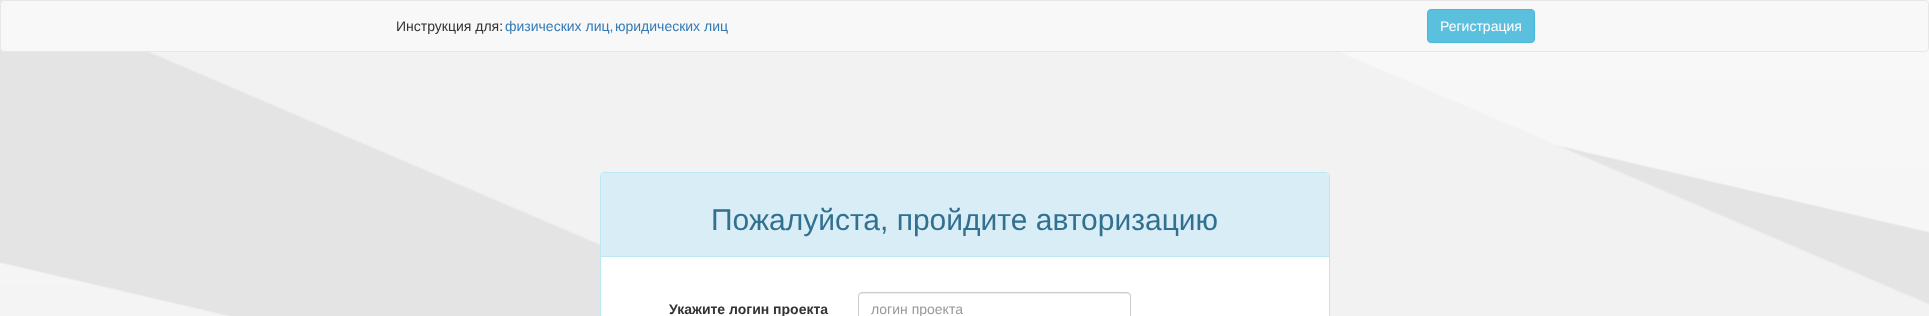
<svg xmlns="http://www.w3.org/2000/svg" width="1929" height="316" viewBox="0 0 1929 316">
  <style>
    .t1 { font: 14px Liberation Sans; fill: #333; }
    .t2 { font: 14px Liberation Sans; fill: #337ab7; }
    .t3 { font: 14px Liberation Sans; fill: #fff; }
    .t4 { font: 30px Liberation Sans; fill: #31708f; }
    .t5 { font: bold 14px Liberation Sans; fill: #333; }
    .t6 { font: 14px Liberation Sans; fill: #999; }
  </style>
  <rect width="100%" height="100%" fill="#fff"/>
  <image x="0" y="0" width="1929" height="316" href="images/1.png"/>
  <rect x="0.5" y="0.5" width="1928" height="51" rx="3.5" fill="#f8f8f8" stroke="#e7e7e7"/>
  <text x="396" y="31" class="t1">Инструкция для:</text>
  <text x="505" y="31" class="t2">физических лиц,</text>
  <text x="615" y="31" class="t2">юридических лиц</text>
  <rect x="1427.5" y="9.5" width="107" height="33" rx="3.5" fill="#5bc0de" stroke="#46b8da"/>
  <text x="1440" y="31" class="t3">Регистрация</text>
  <rect x="600.5" y="172.5" width="729" height="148" rx="3.5" fill="#fff" stroke="#bce8f1"/>
  <path d="M604 173H1326C1327.5 173 1329 174.5 1329 176V257H601V176C601 174.5 602.5 173 604 173Z" fill="#d9edf7"/>
  <rect x="601" y="256" width="728" height="1" fill="#bce8f1"/>
  <text x="711" y="230" class="t4">Пожалуйста, пройдите авторизацию</text>
  <text x="669" y="314" class="t5">Укажите логин проекта</text>
  <path d="M862 294H1127C1129 294 1130 295 1130 297V296C1130 294 1129 293 1127 293H862C860 293 859 294 859 296V297C859 295 860 294 862 294Z" fill="#ececec"/>
  <rect x="858.5" y="292.5" width="272" height="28" rx="3.5" fill="none" stroke="#ccc"/>
  <text x="871" y="314" class="t6">логин проекта</text>
</svg>
